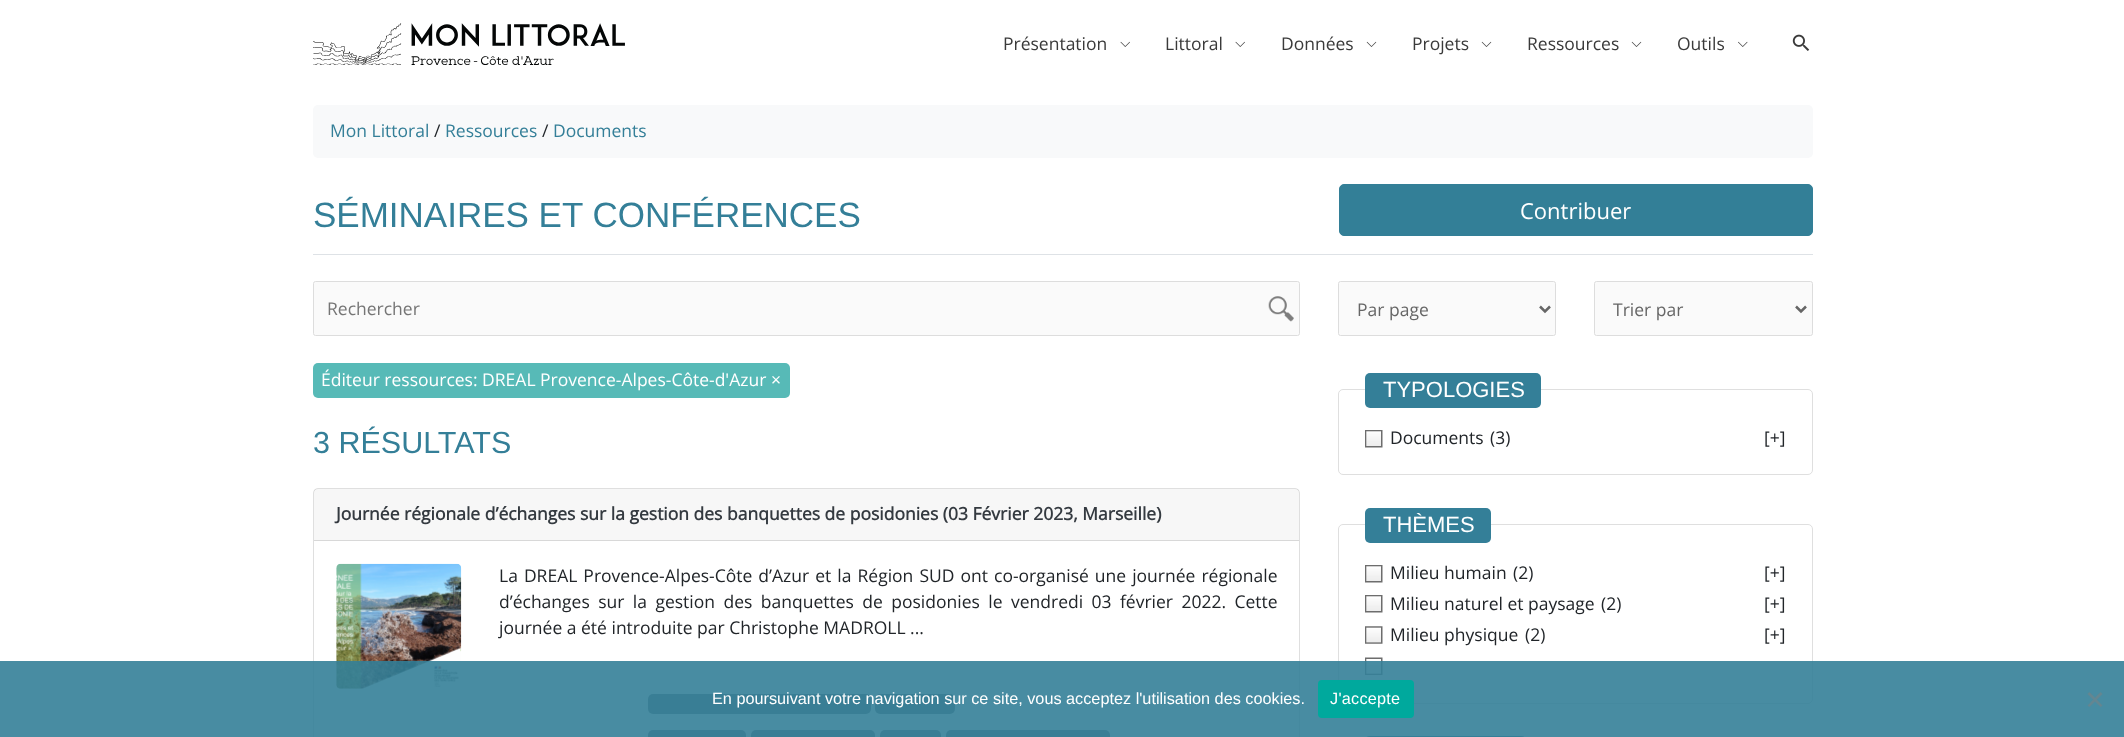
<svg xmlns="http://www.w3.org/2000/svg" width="2124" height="737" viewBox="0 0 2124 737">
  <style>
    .t1 { font: 17.5px Open Sans; fill: #3a3a3a; }
    .t2 { font: 17.5px Open Sans; fill: #347f98; }
    .t3 { font: 17.5px Open Sans; fill: #212529; }
    .t4 { font: 35px Liberation Sans; fill: #347f98; }
    .t5 { font: 22px Open Sans; fill: #fff; }
    .t6 { font: 17.5px Open Sans; fill: #757575; }
    .t7 { font: 17.5px Open Sans; fill: #666; }
    .t8 { font: 17.5px Open Sans; fill: #fff; }
    .t9 { font: 30.5px Liberation Sans; fill: #347f98; }
    .t10 { font: bold 17.5px Open Sans; fill: #343a40; }
    .t11 { font: 22px Liberation Sans; fill: #fff; }
    .t12 { font: 16.25px Liberation Sans; fill: #fff; }
    .t13 { font: 16.25px Liberation Sans; letter-spacing: 0.25px; fill: #fff; }
  </style>
  <rect width="100%" height="100%" fill="#fff"/>
  <image x="313" y="23" width="312" height="42" href="images/1.png"/>
  <text x="1003" y="50" class="t1">Présentation</text>
  <image x="1120" y="41" width="10" height="6" href="images/2.png"/>
  <text x="1165" y="50" class="t1">Littoral</text>
  <image x="1235" y="41" width="10" height="6" href="images/2.png"/>
  <text x="1281" y="50" class="t1">Données</text>
  <image x="1366" y="41" width="11" height="6" href="images/3.png"/>
  <text x="1412" y="50" class="t1">Projets</text>
  <image x="1481" y="41" width="11" height="6" href="images/3.png"/>
  <text x="1527" y="50" class="t1">Ressources</text>
  <image x="1631" y="41" width="11" height="6" href="images/3.png"/>
  <text x="1677" y="50" class="t1">Outils</text>
  <image x="1738" y="41" width="10" height="6" href="images/4.png"/>
  <image x="1792" y="34" width="18" height="17" href="images/5.png"/>
  <rect x="313" y="105" width="1500" height="53" rx="5" fill="#f8f9fa"/>
  <text x="330" y="137" class="t2">Mon Littoral</text>
  <text x="434" y="137" class="t3">/</text>
  <text x="445" y="137" class="t2">Ressources</text>
  <text x="542" y="137" class="t3">/</text>
  <text x="553" y="137" class="t2">Documents</text>
  <rect x="313" y="254" width="1500" height="1" fill="#dee2e6"/>
  <text x="313" y="227" class="t4">SÉMINAIRES ET CONFÉRENCES</text>
  <rect x="1339.5" y="184.5" width="473" height="51" rx="4.5" fill="#337f97" stroke="#337f97"/>
  <text x="1520" y="219" class="t5">Contribuer</text>
  <rect x="313.5" y="281.5" width="986" height="54" rx="2" fill="#fafafa" stroke="#ddd"/>
  <text x="327" y="315" class="t6">Rechercher</text>
  <image x="1268" y="296" width="26" height="26" href="images/6.png"/>
  <rect x="1338.5" y="281.5" width="217" height="54" rx="2" fill="#fafafa" stroke="#ddd"/>
  <path d="M1540 306.5L1545 311.5L1550 306.5" fill="none" stroke="#666" stroke-width="2.5"/>
  <text x="1357" y="316" class="t7">Par page</text>
  <rect x="1594.5" y="281.5" width="218" height="54" rx="2" fill="#fafafa" stroke="#ddd"/>
  <path d="M1796 306.5L1801 311.5L1806 306.5" fill="none" stroke="#666" stroke-width="2.5"/>
  <text x="1613" y="316" class="t7">Trier par</text>
  <rect x="313" y="363" width="477" height="35" rx="5" fill="#57bab7"/>
  <text x="321" y="386" class="t8">Éditeur ressources: DREAL Provence-Alpes-Côte-d'Azur ×</text>
  <text x="313" y="453" class="t9">3 RÉSULTATS</text>
  <rect x="313.5" y="488.5" width="986" height="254" rx="4.5" fill="none" stroke="#dfdfdf"/>
  <rect x="314" y="489" width="985" height="51" fill="#00000008"/>
  <rect x="314" y="540" width="985" height="1" fill="#d8d8d8"/>
  <text x="336" y="520" class="t10">Journée régionale d’échanges sur la gestion des banquettes de posidonies (03 Février 2023, Marseille)</text>
  <image x="336" y="563" width="126" height="126" href="images/7.png"/>
  <text x="499" y="582" word-spacing="1.5" class="t3">La DREAL Provence-Alpes-Côte d’Azur et la Région SUD ont co-organisé une journée régionale</text>
  <text x="499" y="608" word-spacing="3.9" class="t3">d’échanges sur la gestion des banquettes de posidonies le vendredi 03 février 2022. Cette</text>
  <text x="499" y="634" class="t3">journée a été introduite par Christophe MADROLL ...</text>
  <rect x="648" y="694" width="223" height="20" rx="5" fill="#6c757d"/>
  <rect x="875" y="694" width="80" height="20" rx="5" fill="#6c757d"/>
  <rect x="648" y="730" width="98" height="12" rx="5" fill="#6c757d"/>
  <rect x="751" y="730" width="124" height="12" rx="5" fill="#6c757d"/>
  <rect x="880" y="730" width="61" height="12" rx="5" fill="#6c757d"/>
  <rect x="946" y="730" width="164" height="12" rx="5" fill="#6c757d"/>
  <rect x="1338.5" y="389.5" width="474" height="85" rx="4.5" fill="none" stroke="#dfdfdf"/>
  <rect x="1365" y="373" width="176" height="35" rx="5" fill="#347f98"/>
  <text x="1383" y="397" class="t11">TYPOLOGIES</text>
  <image x="1365" y="430" width="18" height="18" href="images/8.png"/>
  <text x="1390" y="444" class="t3">Documents</text>
  <text x="1490" y="444" class="t3">(3)</text>
  <text x="1764" y="444" class="t3">[+]</text>
  <rect x="1338.5" y="524.5" width="474" height="179" rx="4.5" fill="none" stroke="#dfdfdf"/>
  <rect x="1365" y="508" width="126" height="35" rx="5" fill="#347f98"/>
  <text x="1383" y="532" class="t11">THÈMES</text>
  <image x="1365" y="565" width="18" height="18" href="images/8.png"/>
  <text x="1390" y="579" class="t3">Milieu humain</text>
  <text x="1513" y="579" class="t3">(2)</text>
  <text x="1764" y="579" class="t3">[+]</text>
  <image x="1365" y="595" width="18" height="18" href="images/8.png"/>
  <text x="1390" y="610" class="t3">Milieu naturel et paysage</text>
  <text x="1601" y="610" class="t3">(2)</text>
  <text x="1764" y="610" class="t3">[+]</text>
  <image x="1365" y="626" width="18" height="18" href="images/9.png"/>
  <text x="1390" y="641" class="t3">Milieu physique</text>
  <text x="1525" y="641" class="t3">(2)</text>
  <text x="1764" y="641" class="t3">[+]</text>
  <image x="1365" y="657" width="18" height="18" href="images/10.png"/>
  <rect x="1365" y="736" width="161" height="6" rx="5" fill="#347f98"/>
  <rect x="0" y="661" width="2124" height="76" fill="#347f98e6"/>
  <text x="712" y="704" class="t12">En poursuivant votre navigation sur ce site, vous acceptez l'utilisation des cookies.</text>
  <rect x="1318" y="680" width="96" height="38" rx="4" fill="#00a99d"/>
  <text x="1330" y="704" class="t13">J'accepte</text>
  <path d="M2100.5 692L2102.5 694L2089.5 707L2087.5 705.5Z" fill="#648691"/>
  <path d="M2087.5 694L2089.5 692L2102.5 705.5L2100.5 707Z" fill="#648691"/>
</svg>
